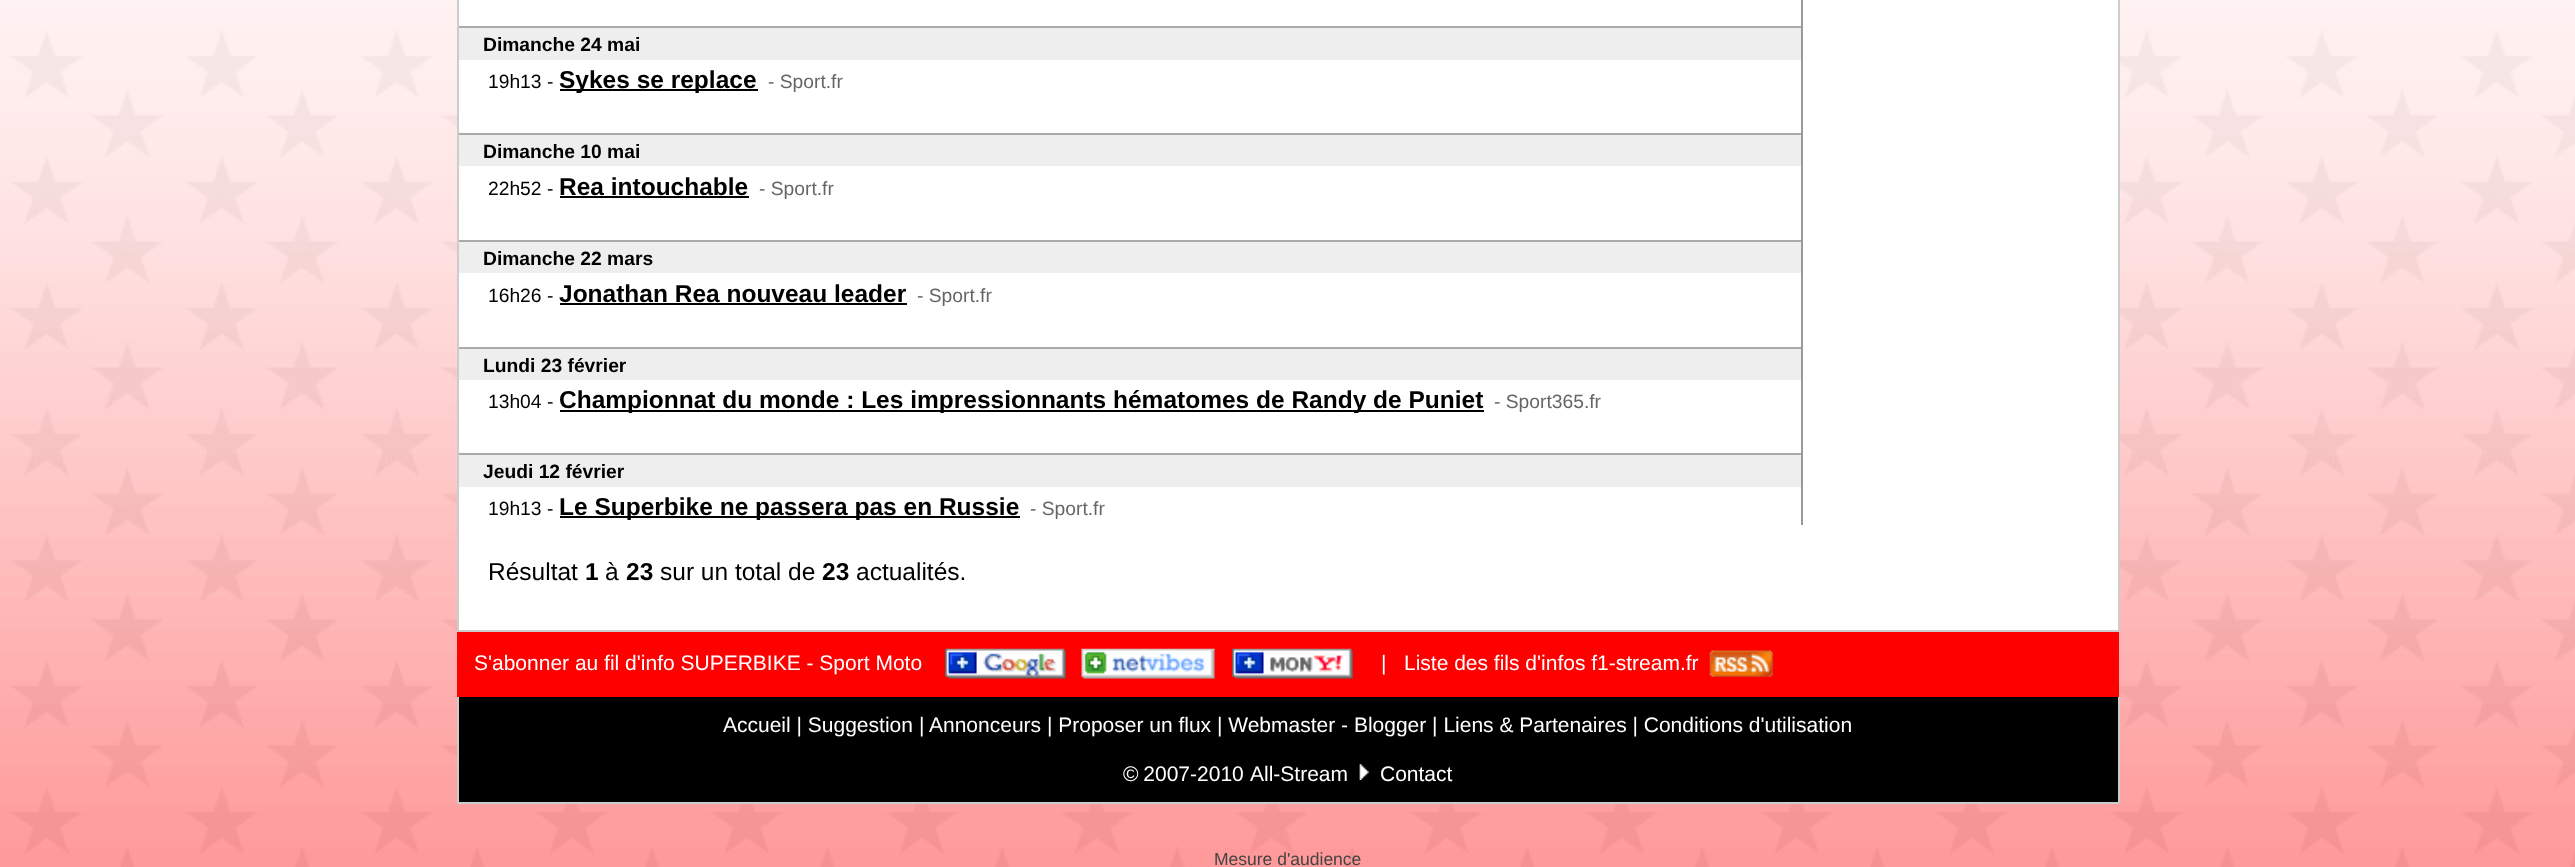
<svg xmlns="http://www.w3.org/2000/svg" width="2575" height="867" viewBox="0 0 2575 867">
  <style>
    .t1 { font: bold 19.25px Liberation Sans; fill: #000; }
    .t2 { font: 19.25px Liberation Sans; fill: #000; }
    .t3 { font: bold 24.5px Liberation Sans; fill: #000; }
    .t4 { font: 19.25px Liberation Sans; fill: #666; }
    .t5 { font: 24.5px Liberation Sans; fill: #000; }
    .t6 { font: 21px Liberation Sans; fill: #fff; }
    .t7 { font: 17.5px Liberation Sans; fill: #444; }
  </style>
  <rect width="100%" height="100%" fill="#fff"/>
  <image x="0" y="0" width="2575" height="867" href="images/1.png"/>
  <rect x="459" y="0" width="1659" height="630" fill="#fff"/>
  <rect x="2118" y="0" width="2" height="632" fill="#ccc"/>
  <rect x="457" y="630" width="1662" height="2" fill="#ccc"/>
  <rect x="457" y="0" width="2" height="632" fill="#ccc"/>
  <rect x="459" y="28" width="1342" height="32" fill="#eee"/>
  <rect x="459" y="26" width="1342" height="2" fill="#aaa"/>
  <text x="483" y="51" class="t1">Dimanche 24 mai</text>
  <text x="488" y="88" class="t2">19h13 -</text>
  <rect x="560" y="89" width="198" height="2" fill="#000"/>
  <text x="559" y="88" class="t3">Sykes se replace</text>
  <text x="768" y="88" class="t4">- Sport.fr</text>
  <rect x="459" y="135" width="1342" height="31" fill="#eee"/>
  <rect x="459" y="133" width="1342" height="2" fill="#aaa"/>
  <text x="483" y="158" class="t1">Dimanche 10 mai</text>
  <text x="488" y="195" class="t2">22h52 -</text>
  <text x="559" y="195" class="t3">Rea intouchable</text>
  <rect x="560" y="196" width="189" height="2" fill="#000"/>
  <text x="759" y="195" class="t4">- Sport.fr</text>
  <rect x="459" y="242" width="1342" height="31" fill="#eee"/>
  <rect x="459" y="240" width="1342" height="2" fill="#aaa"/>
  <text x="483" y="265" class="t1">Dimanche 22 mars</text>
  <text x="488" y="302" class="t2">16h26 -</text>
  <text x="559" y="302" class="t3">Jonathan Rea nouveau leader</text>
  <rect x="560" y="303" width="347" height="2" fill="#000"/>
  <text x="917" y="302" class="t4">- Sport.fr</text>
  <rect x="459" y="349" width="1342" height="31" fill="#eee"/>
  <rect x="459" y="347" width="1342" height="2" fill="#aaa"/>
  <text x="483" y="372" class="t1">Lundi 23 février</text>
  <text x="488" y="408" class="t2">13h04 -</text>
  <rect x="560" y="410" width="924" height="2" fill="#000"/>
  <text x="559" y="408" class="t3">Championnat du monde : Les impressionnants hématomes de Randy de Puniet</text>
  <text x="1494" y="408" class="t4">- Sport365.fr</text>
  <rect x="459" y="455" width="1342" height="32" fill="#eee"/>
  <rect x="459" y="453" width="1342" height="2" fill="#aaa"/>
  <text x="483" y="478" class="t1">Jeudi 12 février</text>
  <text x="488" y="515" class="t2">19h13 -</text>
  <rect x="560" y="516" width="460" height="2" fill="#000"/>
  <text x="559" y="515" class="t3">Le Superbike ne passera pas en Russie</text>
  <text x="1030" y="515" class="t4">- Sport.fr</text>
  <rect x="1801" y="0" width="2" height="525" fill="#999"/>
  <text x="488" y="580" class="t5">Résultat</text>
  <text x="585" y="580" class="t3">1</text>
  <text x="605" y="580" class="t5">à</text>
  <text x="626" y="580" class="t3">23</text>
  <text x="660" y="580" class="t5">sur un total de</text>
  <text x="822" y="580" class="t3">23</text>
  <text x="856" y="580" class="t5">actualités.</text>
  <rect x="457" y="632" width="1662" height="65" fill="#f00"/>
  <text x="474" y="670" class="t6">S'abonner au fil d'info SUPERBIKE - Sport Moto</text>
  <image x="945" y="648" width="121" height="31" href="images/2.png"/>
  <image x="1081" y="648" width="134" height="31" href="images/3.png"/>
  <image x="1232" y="648" width="121" height="31" href="images/4.png"/>
  <text x="1381" y="670" class="t6" xml:space="preserve">|   Liste des fils d'infos f1-stream.fr</text>
  <image x="1709" y="650" width="64" height="27" href="images/5.png"/>
  <rect x="459" y="697" width="1659" height="105" fill="#000"/>
  <rect x="2118" y="697" width="2" height="106" fill="#ccc"/>
  <rect x="457" y="802" width="1662" height="2" fill="#ccc"/>
  <rect x="457" y="697" width="2" height="106" fill="#ccc"/>
  <text x="723" y="732" class="t6">Accueil | Suggestion</text>
  <text x="919" y="732" class="t6">|</text>
  <text x="929" y="732" class="t6">Annonceurs | Proposer un flux | Webmaster - Blogger | Liens &amp; Partenaires | Conditions d'utilisation</text>
  <text x="1123" y="781" word-spacing="-1" class="t6">© 2007-2010</text>
  <text x="1250" y="781" class="t6">All-Stream</text>
  <image x="1359" y="764" width="10" height="16" href="images/6.png"/>
  <text x="1380" y="781" class="t6">Contact</text>
  <text x="1214" y="865" class="t7">Mesure d'audience</text>
</svg>
